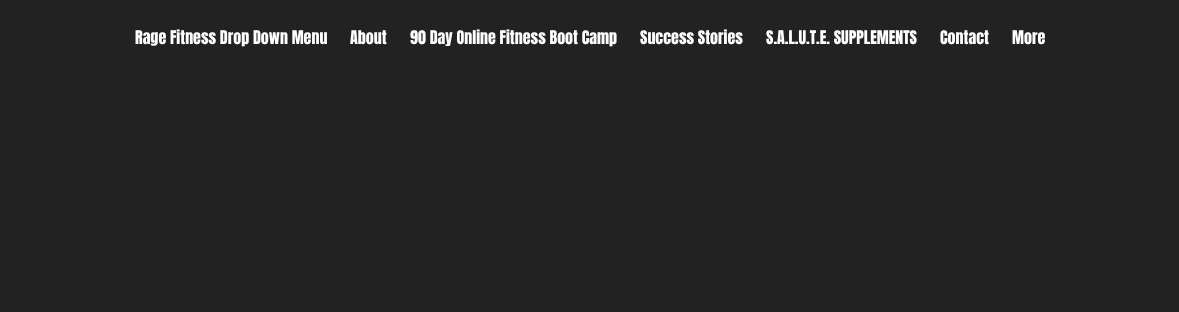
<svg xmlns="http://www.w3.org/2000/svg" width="1179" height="312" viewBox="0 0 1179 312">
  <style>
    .t1 { font: 16px Anton; fill: #fff; }
  </style>
  <rect width="100%" height="100%" fill="#222"/>
  <text x="135" y="44" class="t1">Rage Fitness Drop Down Menu</text>
  <text x="350" y="44" class="t1">About</text>
  <text x="410" y="44" class="t1">90 Day Online Fitness Boot Camp</text>
  <text x="640" y="44" class="t1">Success Stories</text>
  <text x="766" y="44" class="t1">S.A.L.U.T.E. SUPPLEMENTS</text>
  <text x="940" y="44" class="t1">Contact</text>
  <text x="1012" y="44" class="t1">More</text>
</svg>
